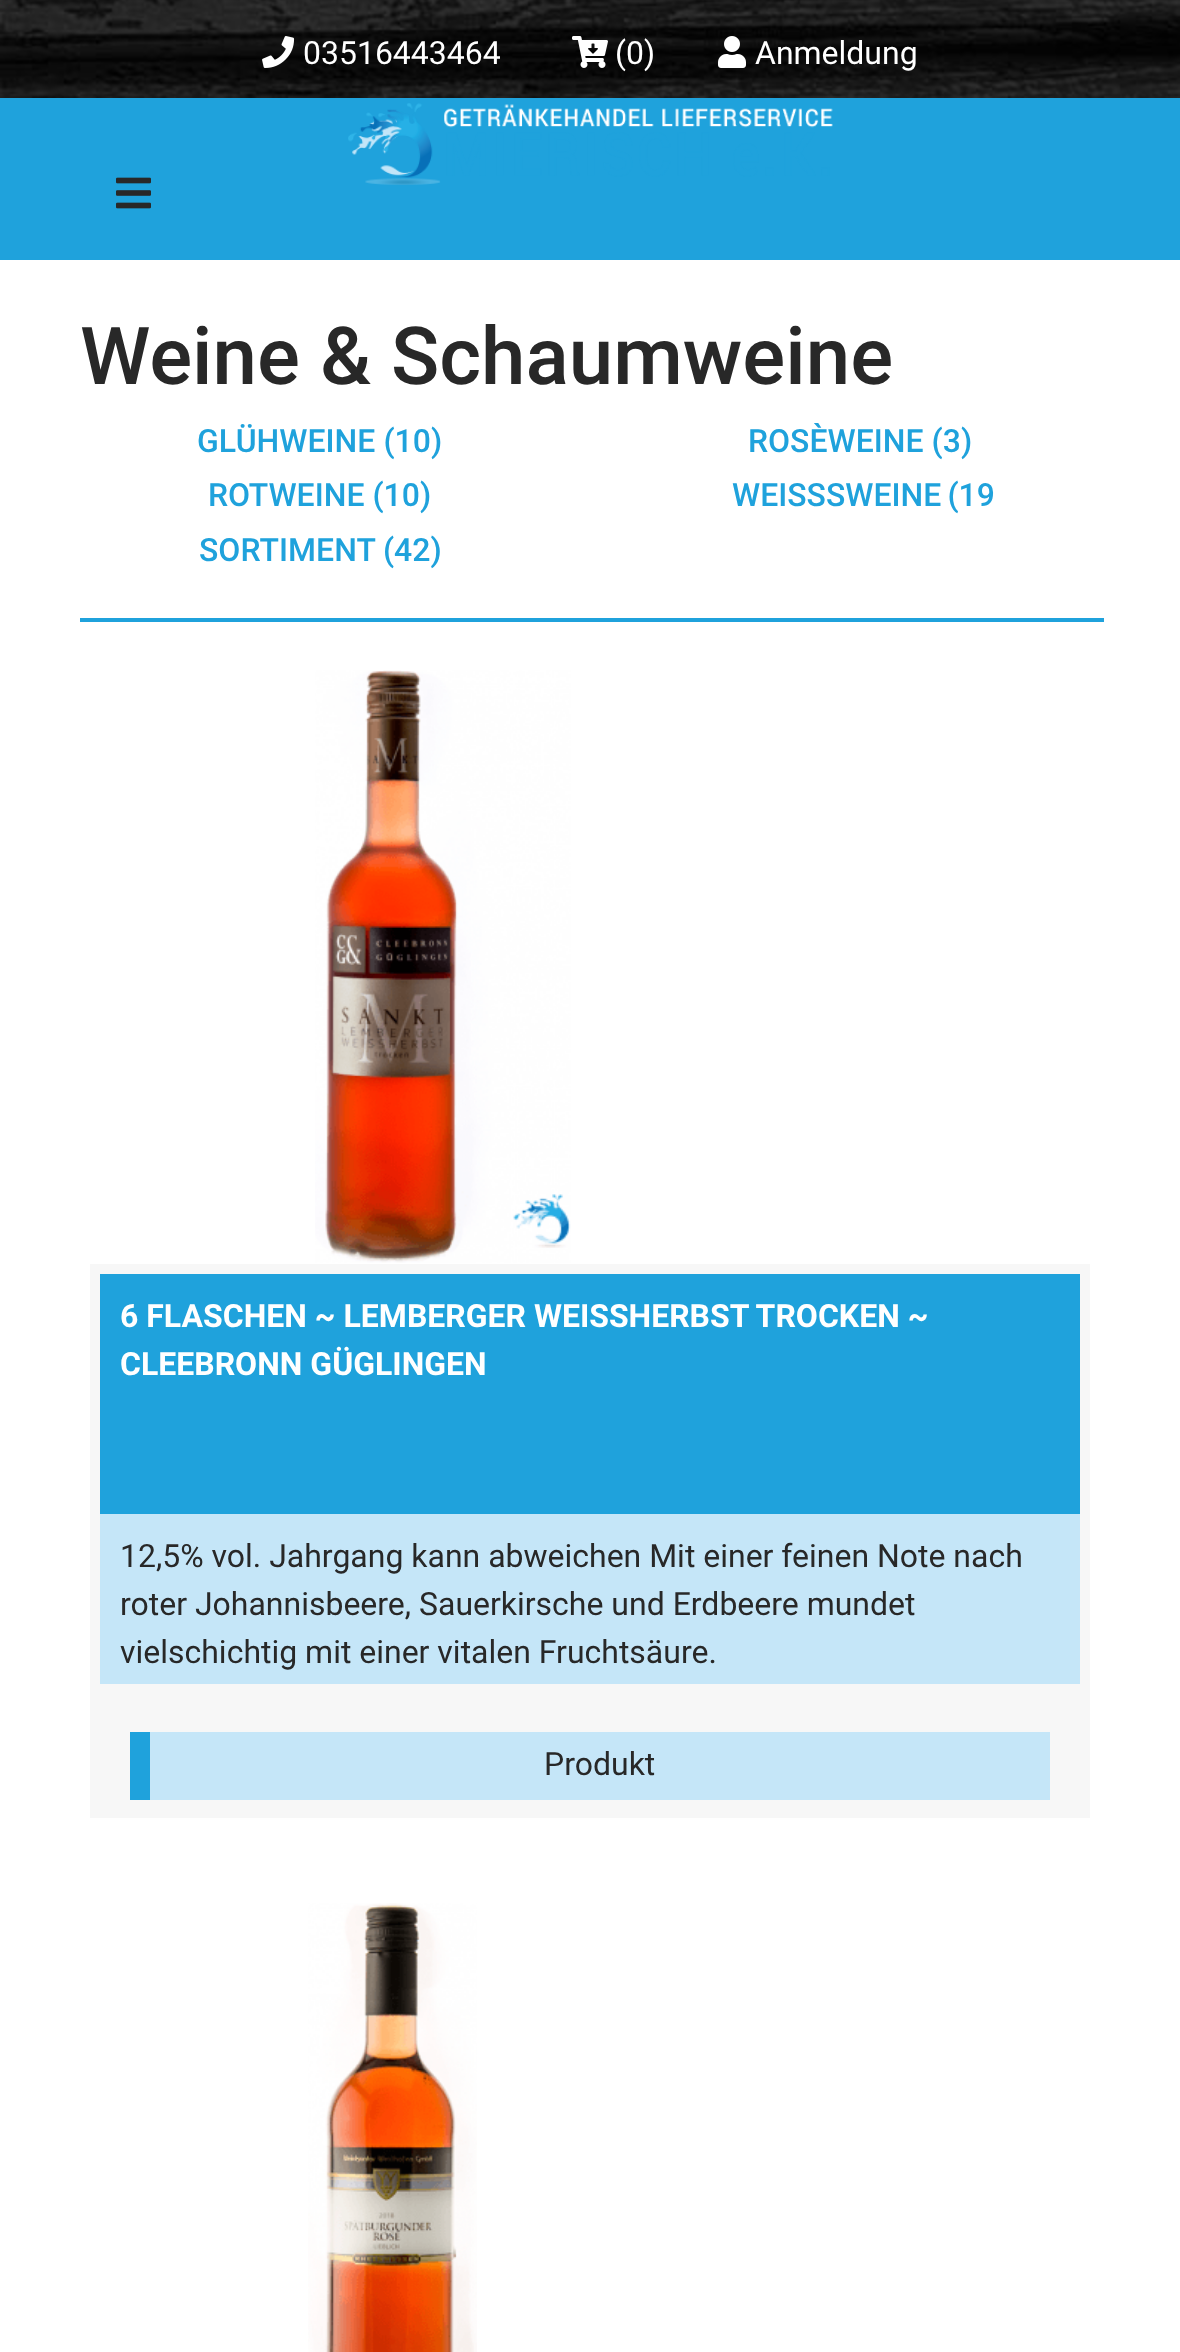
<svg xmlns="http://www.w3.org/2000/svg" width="1180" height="2352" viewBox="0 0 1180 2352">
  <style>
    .t1 { font: 32px Roboto; fill: #fff; }
    .t2 { font: 500 80px Roboto; fill: #282828; }
    .t3 { font: 500 32px Roboto; fill: #1fa2dc; }
    .t4 { font: bold 32px Roboto; fill: #fff; }
    .t5 { font: 32px Roboto; fill: #282828; }
  </style>
  <rect width="100%" height="100%" fill="#fff"/>
  <image x="0" y="0" width="1180" height="98" href="images/1.png"/>
  <image x="262" y="36" width="33" height="32" href="images/2.png"/>
  <text x="303" y="64" class="t1">03516443464</text>
  <image x="572" y="36" width="36" height="32" href="images/3.png"/>
  <text x="615" y="64" class="t1">(0)</text>
  <image x="718" y="36" width="28" height="32" href="images/4.png"/>
  <text x="755" y="64" class="t1">Anmeldung</text>
  <rect x="0" y="98" width="1180" height="162" fill="#1fa2dc"/>
  <image x="348" y="103" width="485" height="82" href="images/5.png"/>
  <image x="116" y="177" width="35" height="32" href="images/6.png"/>
  <text x="80" y="384" class="t2">Weine &amp; Schaumweine</text>
  <text x="197" y="452" class="t3">GLÜHWEINE (10)</text>
  <text x="748" y="452" class="t3">ROSÈWEINE (3)</text>
  <text x="208" y="506" class="t3">ROTWEINE (10)</text>
  <text x="732" y="506" class="t3">WEISS</text>
  <text x="826" y="506" word-spacing="-2" class="t3">SWEINE (19</text>
  <text x="199" y="561" class="t3">SORTIMENT (42)</text>
  <rect x="80" y="618" width="1024" height="4" fill="#1fa2dc"/>
  <image x="315" y="670" width="256" height="593" href="images/7.png"/>
  <rect x="90" y="1264" width="1000" height="554" fill="#f7f7f7"/>
  <rect x="100" y="1274" width="980" height="240" fill="#1fa2dc"/>
  <text x="120" y="1327" class="t4">6 FLASCHEN ~ LEMBERGER WEISSHERBST TROCKEN ~</text>
  <text x="120" y="1375" class="t4">CLEEBRONN GÜGLINGEN</text>
  <rect x="100" y="1514" width="980" height="170" fill="#c5e6f8"/>
  <text x="120" y="1567" class="t5">12,5% vol. Jahrgang kann abweichen Mit einer feinen Note nach</text>
  <text x="120" y="1615" class="t5">roter Johannisbeere, Sauerkirsche und Erdbeere mundet</text>
  <text x="120" y="1663" class="t5">vielschichtig mit einer vitalen Fruchtsäure.</text>
  <rect x="150" y="1732" width="900" height="68" fill="#c5e6f8"/>
  <rect x="130" y="1732" width="20" height="68" fill="#1fa2dc"/>
  <text x="544" y="1775" class="t5">Produkt</text>
  <image x="308" y="1903" width="169" height="449" href="images/8.png"/>
</svg>
